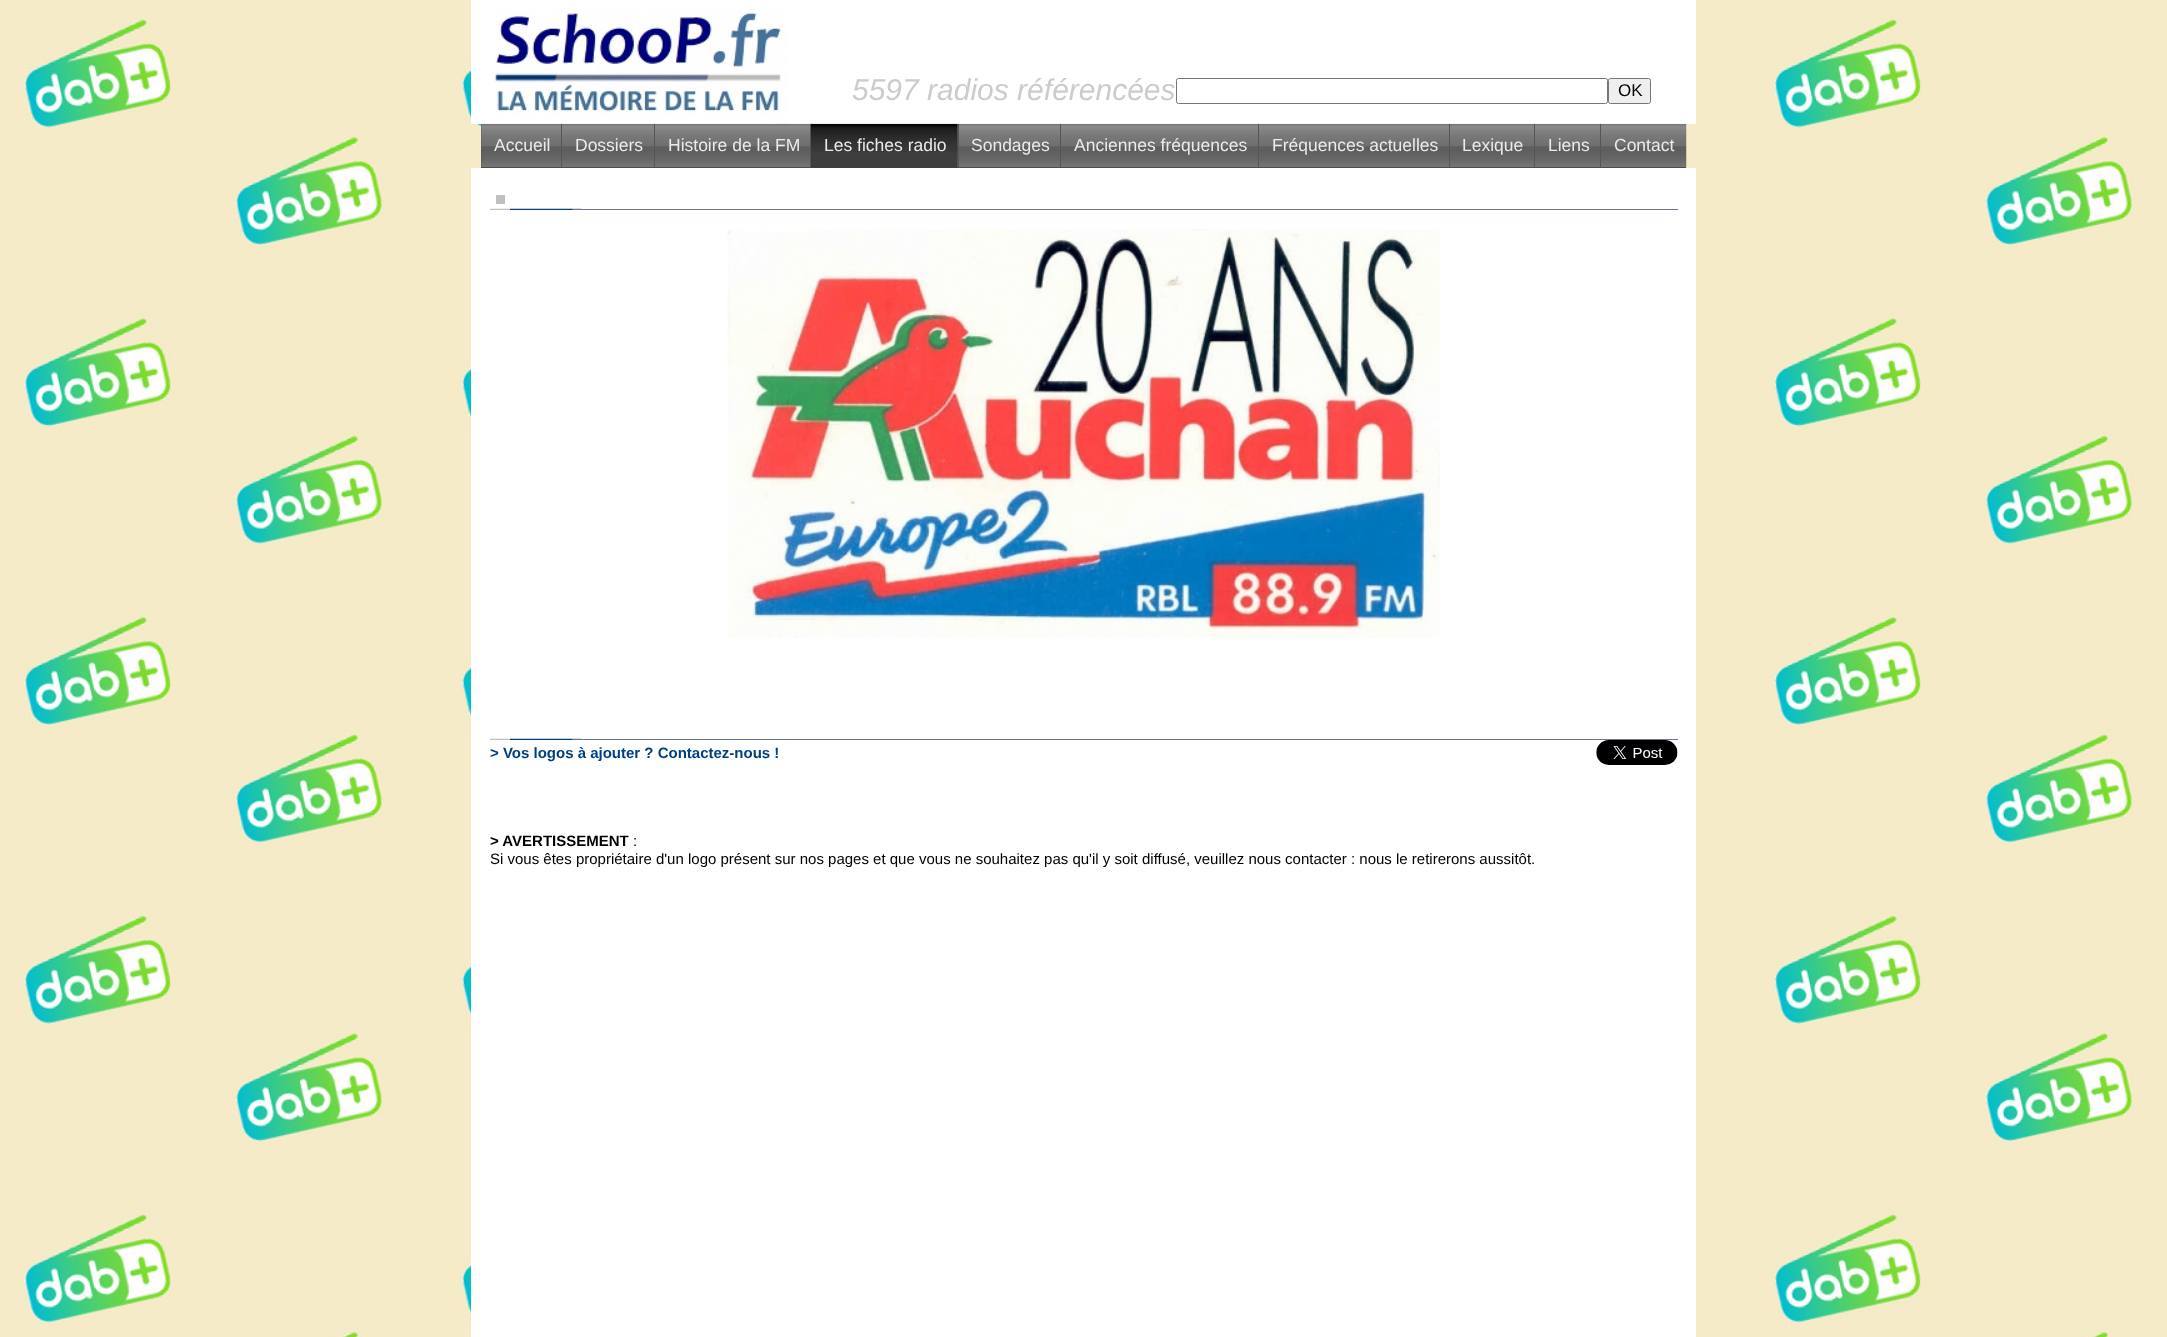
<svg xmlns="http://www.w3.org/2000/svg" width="2167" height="1337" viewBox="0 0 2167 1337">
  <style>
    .t1 { font: italic 30px Liberation Sans; fill: #ccc; }
    .t2 { font: 17px Liberation Sans; fill: #000; }
    .t3 { font: 17.5px Liberation Sans; fill: #ebebeb; }
    .t4 { font: bold 15px Liberation Sans; fill: #004080; }
    .t5 { font: bold 15px Liberation Sans; fill: #000; }
    .t6 { font: 15px Liberation Sans; fill: #000; }
  </style>
  <rect width="100%" height="100%" fill="#f6ebc9"/>
  <image x="22" y="14" width="2112" height="1323" href="images/1.png"/>
  <rect x="471" y="0" width="1225" height="124" fill="#fff"/>
  <image x="494" y="10" width="294" height="114" href="images/2.png"/>
  <text x="852" y="100" class="t1">5597 radios référencées</text>
  <rect x="1176.5" y="78.5" width="431" height="25" rx="2" fill="none" stroke="#767676"/>
  <rect x="1608.5" y="78.5" width="42" height="25" rx="2" fill="#efefef" stroke="#767676"/>
  <text x="1618" y="96" class="t2">OK</text>
  <rect x="481" y="124" width="80" height="44" fill="#444"/>
  <image x="481" y="123" width="83" height="45" href="images/3.png"/>
  <text x="494" y="151" class="t3">Accueil</text>
  <rect x="562" y="167" width="92" height="1" fill="#444"/>
  <image x="561" y="123" width="95" height="45" href="images/4.png"/>
  <rect x="561" y="124" width="1" height="44" fill="#555"/>
  <text x="575" y="151" class="t3">Dossiers</text>
  <rect x="655" y="167" width="155" height="1" fill="#444"/>
  <image x="654" y="123" width="159" height="45" href="images/5.png"/>
  <rect x="654" y="124" width="1" height="44" fill="#555"/>
  <text x="668" y="151" class="t3">Histoire de la FM</text>
  <rect x="811" y="167" width="147" height="1" fill="#444"/>
  <image x="810" y="123" width="149" height="45" href="images/6.png"/>
  <rect x="810" y="124" width="1" height="44" fill="#555"/>
  <text x="824" y="151" class="t3">Les fiches radio</text>
  <rect x="959" y="167" width="101" height="1" fill="#444"/>
  <image x="957" y="123" width="106" height="45" href="images/7.png"/>
  <rect x="958" y="124" width="1" height="44" fill="#555"/>
  <text x="971" y="151" class="t3">Sondages</text>
  <rect x="1061" y="167" width="197" height="1" fill="#444"/>
  <image x="1060" y="123" width="200" height="45" href="images/8.png"/>
  <rect x="1060" y="124" width="1" height="44" fill="#555"/>
  <text x="1074" y="151" class="t3">Anciennes fréquences</text>
  <rect x="1259" y="167" width="190" height="1" fill="#444"/>
  <image x="1258" y="123" width="192" height="45" href="images/9.png"/>
  <rect x="1258" y="124" width="1" height="44" fill="#555"/>
  <text x="1272" y="151" class="t3">Fréquences actuelles</text>
  <rect x="1450" y="167" width="84" height="1" fill="#444"/>
  <image x="1449" y="123" width="87" height="45" href="images/10.png"/>
  <rect x="1449" y="124" width="1" height="44" fill="#555"/>
  <text x="1462" y="151" class="t3">Lexique</text>
  <rect x="1535" y="167" width="65" height="1" fill="#444"/>
  <image x="1534" y="123" width="69" height="45" href="images/11.png"/>
  <rect x="1534" y="124" width="1" height="44" fill="#555"/>
  <text x="1548" y="151" class="t3">Liens</text>
  <rect x="1601" y="167" width="85" height="1" fill="#444"/>
  <image x="1600" y="123" width="87" height="45" href="images/12.png"/>
  <rect x="1600" y="124" width="1" height="44" fill="#555"/>
  <text x="1614" y="151" class="t3">Contact</text>
  <rect x="471" y="168" width="1225" height="1169" fill="#fff"/>
  <rect x="496" y="195" width="9" height="9" fill="#c0c0c0"/>
  <rect x="572" y="209" width="1106" height="1" fill="#6b7694"/>
  <image x="490" y="208" width="20" height="2" href="images/13.png"/>
  <image x="510" y="208" width="63" height="2" href="images/14.png"/>
  <image x="572" y="208" width="10" height="2" href="images/15.png"/>
  <image x="727" y="229" width="713" height="409" href="images/16.png"/>
  <rect x="572" y="739" width="1106" height="1" fill="#6b7694"/>
  <image x="490" y="738" width="20" height="2" href="images/13.png"/>
  <image x="510" y="738" width="63" height="2" href="images/14.png"/>
  <image x="572" y="738" width="10" height="2" href="images/15.png"/>
  <text x="490" y="758" class="t4">&gt; Vos logos à ajouter ? Contactez-nous !</text>
  <image x="1596" y="740" width="82" height="25" href="images/17.png"/>
  <text x="490" y="846" class="t5">&gt; AVERTISSEMENT</text>
  <text x="633" y="846" class="t6">:</text>
  <text x="490" y="864" class="t6">Si vous êtes propriétaire d'un logo présent sur nos pages et que vous ne souhaitez pas qu'il y soit diffusé, veuillez nous contacter : nous le retirerons aussitôt.</text>
</svg>
